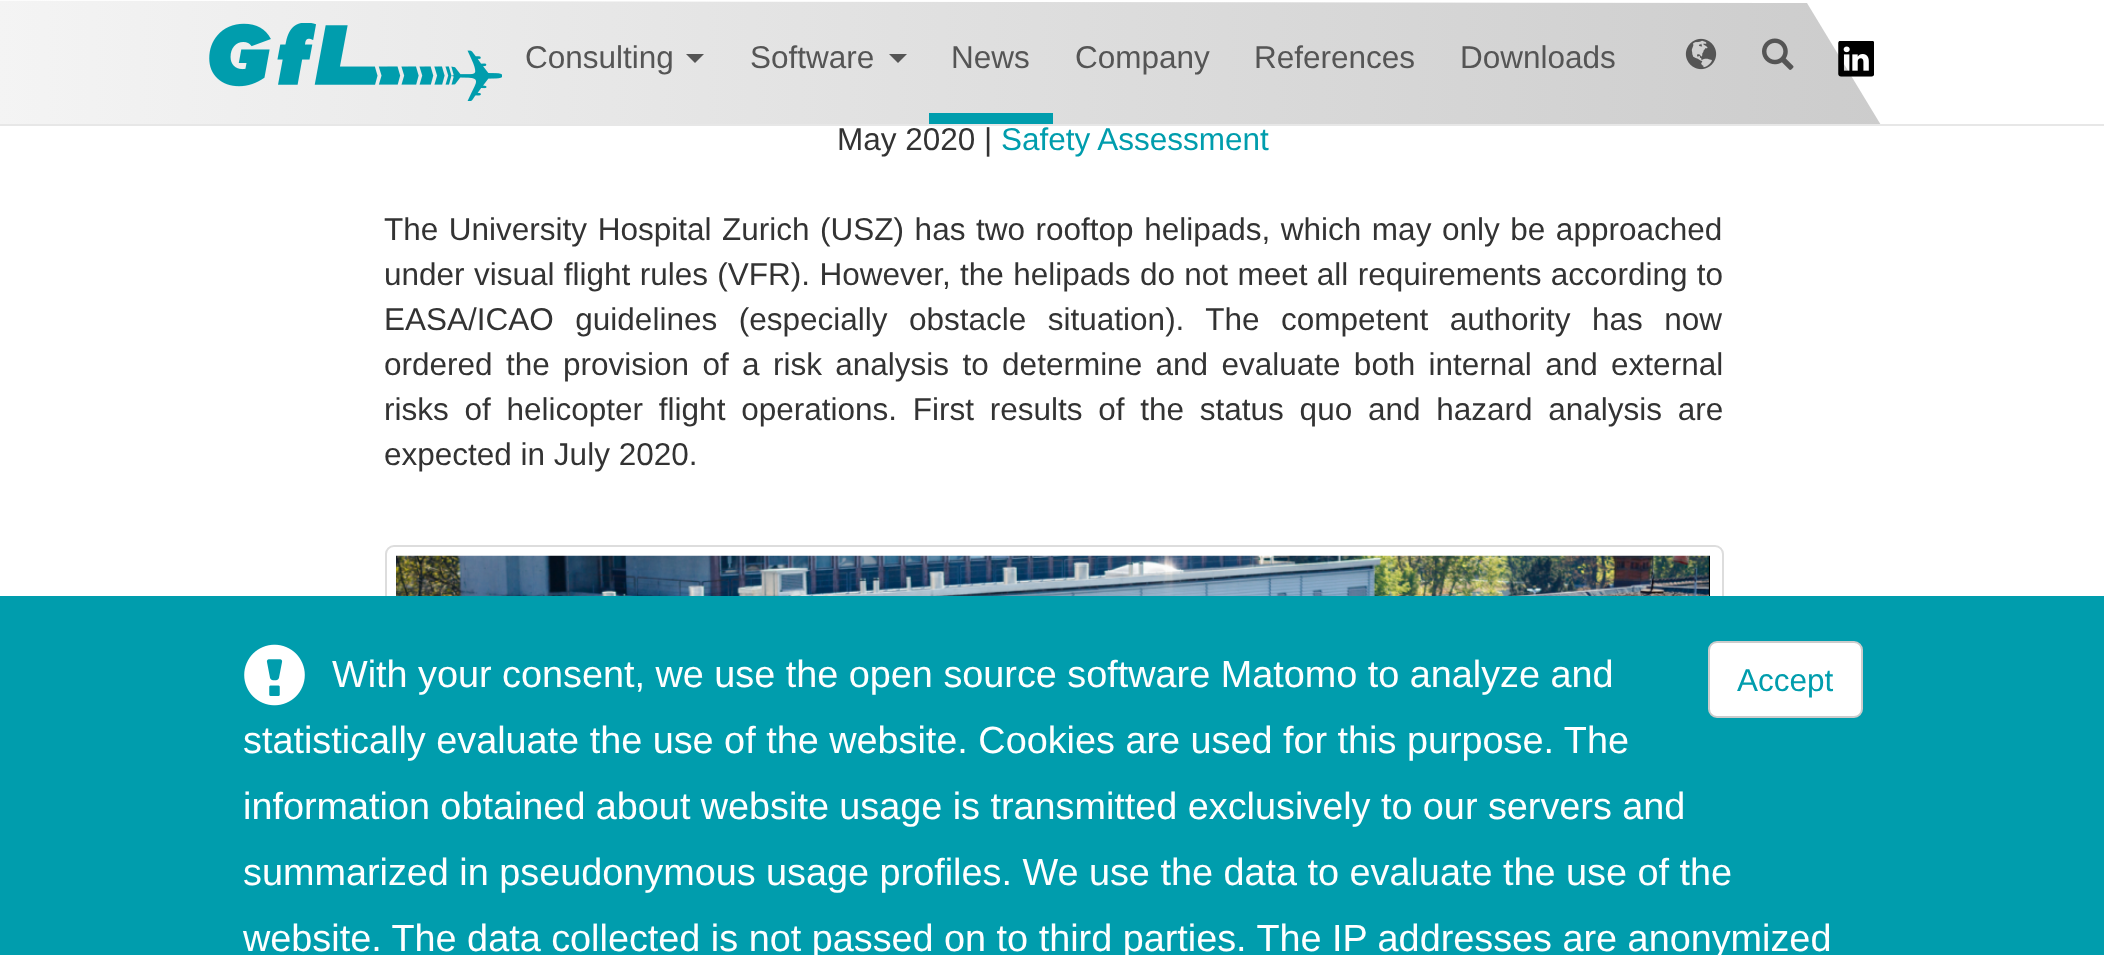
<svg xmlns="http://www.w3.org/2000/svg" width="2104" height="955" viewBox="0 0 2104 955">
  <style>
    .t1 { font: 31.5px Liberation Sans; fill: #555; }
    .t2 { font: 31.5px Liberation Sans; fill: #333; }
    .t3 { font: 31.5px Liberation Sans; fill: #009dad; }
    .t4 { font: 37.8px Liberation Sans; fill: #fff; }
  </style>
  <defs>
    <clipPath id="clip1"><rect x="0" y="0" width="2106" height="124"/></clipPath>
    <linearGradient id="g1" gradientUnits="userSpaceOnUse" x1="-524" y1="67" x2="1887" y2="67"><stop offset="0" stop-color="#fff"/><stop offset="1" stop-color="#ccc"/></linearGradient>
  </defs>
  <rect width="100%" height="100%" fill="#fff"/>
  <g clip-path="url(#clip1)">
    <path d="M1887 135L1807 3L-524 0V135Z" fill="url(#g1)"/>
  </g>
  <rect x="0" y="124" width="2104" height="2" fill="#e7e7e7"/>
  <image x="209" y="23" width="293" height="78" href="images/1.png"/>
  <text x="525" y="68" class="t1">Consulting</text>
  <path d="M686 54H704L695 63Z" fill="#555"/>
  <text x="750" y="68" class="t1">Software</text>
  <path d="M889 54H907L898 63Z" fill="#555"/>
  <rect x="929" y="113" width="124" height="11" fill="#009dad"/>
  <text x="951" y="68" class="t1">News</text>
  <text x="1075" y="68" class="t1">Company</text>
  <text x="1254" y="68" class="t1">References</text>
  <text x="1460" y="68" class="t1">Downloads</text>
  <image x="1685" y="38" width="32" height="32" href="images/2.png"/>
  <image x="1762" y="38" width="32" height="32" href="images/3.png"/>
  <image x="1838" y="41" width="36" height="36" href="images/4.png"/>
  <text x="837" y="150" class="t2">May 2020 |</text>
  <text x="1001" y="150" class="t3">Safety Assessment</text>
  <text x="384" y="240" word-spacing="1.8" class="t2">The University Hospital Zurich (USZ) has two rooftop helipads, which may only be approached</text>
  <text x="384" y="285" word-spacing="0.6" class="t2">under visual flight rules (VFR). However, the helipads do not meet all requirements according to</text>
  <text x="384" y="330" word-spacing="12.75" class="t2">EASA/ICAO guidelines (especially obstacle situation). The competent authority has now</text>
  <text x="384" y="375" word-spacing="4.6" class="t2">ordered the provision of a risk analysis to determine and evaluate both internal and external</text>
  <text x="384" y="420" word-spacing="7" class="t2">risks of helicopter flight operations. First results of the status quo and hazard analysis are</text>
  <text x="384" y="465" class="t2">expected in July 2020.</text>
  <rect x="386" y="546" width="1337" height="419" rx="8" fill="none" stroke="#ddd" stroke-width="2"/>
  <image x="396" y="555" width="1314" height="41" href="images/5.png"/>
  <rect x="0" y="596" width="2104" height="359" fill="#009dad"/>
  <image x="244" y="644" width="61" height="62" href="images/6.png"/>
  <text x="332" y="687" class="t4">With your consent, we use the open source software Matomo to analyze and</text>
  <rect x="1709" y="642" width="153" height="75" rx="8" fill="#fff" stroke="#ccc" stroke-width="2"/>
  <text x="1737" y="691" class="t3">Accept</text>
  <text x="243" y="753" class="t4">statistically evaluate the use of the website. Cookies are used for this purpose. The</text>
  <text x="243" y="819" word-spacing="-0.1" class="t4">information obtained about website usage is transmitted exclusively to our servers and</text>
  <text x="243" y="885" class="t4">summarized in pseudonymous usage profiles. We use the data to evaluate the use of the</text>
  <text x="243" y="951" class="t4">website. The data collected is not passed on to third parties. The IP addresses are anonymized</text>
</svg>
